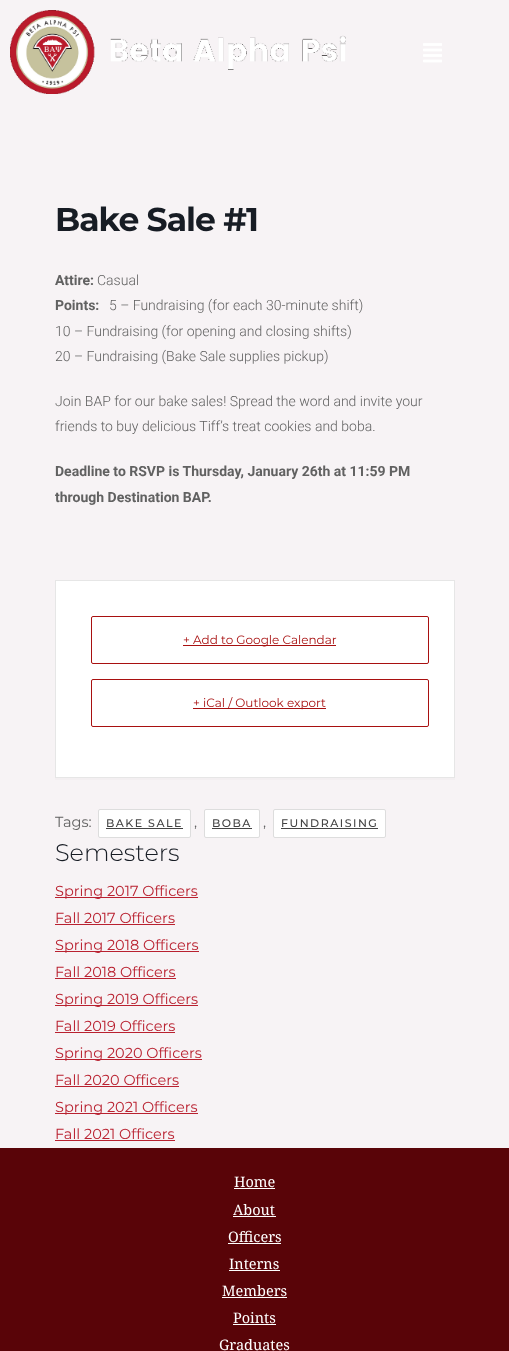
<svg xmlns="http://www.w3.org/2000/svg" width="509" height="1351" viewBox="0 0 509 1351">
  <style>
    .t1 { font: bold 33px Montserrat; letter-spacing: -1px; fill: #171c24; }
    .t2 { font: bold 14px Roboto; fill: #616161; }
    .t3 { font: 300 14px Roboto; fill: #616161; }
    .t4 { font: 12px Montserrat; fill: #a81010; }
    .t5 { font: 14.5px Montserrat; fill: #616161; }
    .t6 { font: 500 11px Montserrat; letter-spacing: 1.5px; fill: #444; }
    .t7 { font: 300 24px Montserrat; fill: #171c24; }
    .t8 { font: 14.5px Montserrat; fill: #b92130; }
    .t9 { font: 14.5px Noto Serif; fill: #fff; }
  </style>
  <rect width="100%" height="100%" fill="#f7f3f5"/>
  <image x="10" y="10" width="336" height="84" href="images/1.png"/>
  <image x="423" y="43" width="19" height="20" href="images/2.png"/>
  <text x="55" y="231" class="t1">Bake Sale #1</text>
  <text x="55" y="285" class="t2">Attire:</text>
  <text x="97" y="285" class="t3">Casual</text>
  <text x="55" y="310" class="t2">Points:</text>
  <text x="109" y="310" class="t3">5 – Fundraising (for each 30-minute shift)</text>
  <text x="55" y="336" class="t3">10 – Fundraising (for opening and closing shifts)</text>
  <text x="55" y="361" class="t3">20 – Fundraising (Bake Sale supplies pickup)</text>
  <text x="55" y="406" class="t3">Join BAP for our bake sales! Spread the word and invite your</text>
  <text x="55" y="431" class="t3">friends to buy delicious Tiff’s treat cookies and boba.</text>
  <text x="55" y="476" class="t2">Deadline to RSVP is Thursday, January 26th at 11:59 PM</text>
  <text x="55" y="502" class="t2">through Destination BAP.</text>
  <rect x="55" y="778" width="400" height="2" fill="#f3eff1"/>
  <rect x="55.5" y="580.5" width="399" height="197" fill="#fff" stroke="#e6e6e6"/>
  <rect x="91.5" y="616.5" width="337" height="47" rx="1.5" fill="none" stroke="#a81010"/>
  <rect x="183" y="645" width="153" height="1" fill="#a81010"/>
  <text x="183" y="644" class="t4">+ Add to Google Calendar</text>
  <rect x="91.5" y="679.5" width="337" height="47" rx="1.5" fill="none" stroke="#a81010"/>
  <rect x="193" y="708" width="133" height="1" fill="#a81010"/>
  <text x="193" y="707" class="t4">+ iCal / Outlook export</text>
  <text x="55" y="827" class="t5">Tags:</text>
  <rect x="98.5" y="809.5" width="92" height="28" rx="1.5" fill="#fff" stroke="#ddd"/>
  <text x="106" y="827" class="t6">BAKE SALE</text>
  <rect x="106" y="828" width="77" height="1" fill="#444"/>
  <text x="194" y="827" class="t5">,</text>
  <rect x="204.5" y="809.5" width="55" height="28" rx="1.5" fill="#fff" stroke="#ddd"/>
  <text x="212" y="827" class="t6">BOBA</text>
  <rect x="212" y="828" width="40" height="1" fill="#444"/>
  <text x="263" y="827" class="t5">,</text>
  <rect x="273.5" y="809.5" width="112" height="28" rx="1.5" fill="#fff" stroke="#ddd"/>
  <text x="281" y="827" class="t6">FUNDRAISING</text>
  <rect x="281" y="828" width="97" height="1" fill="#444"/>
  <text x="55" y="861" class="t7">Semesters</text>
  <rect x="55" y="897" width="143" height="1" fill="#b92130"/>
  <text x="55" y="896" class="t8">Spring 2017 Officers</text>
  <text x="55" y="923" class="t8">Fall 2017 Officers</text>
  <rect x="55" y="924" width="120" height="1" fill="#b92130"/>
  <rect x="55" y="951" width="144" height="1" fill="#b92130"/>
  <text x="55" y="950" class="t8">Spring 2018 Officers</text>
  <text x="55" y="977" class="t8">Fall 2018 Officers</text>
  <rect x="55" y="978" width="121" height="1" fill="#b92130"/>
  <rect x="55" y="1005" width="143" height="1" fill="#b92130"/>
  <text x="55" y="1004" class="t8">Spring 2019 Officers</text>
  <text x="55" y="1031" class="t8">Fall 2019 Officers</text>
  <rect x="55" y="1032" width="120" height="1" fill="#b92130"/>
  <rect x="55" y="1059" width="147" height="1" fill="#b92130"/>
  <text x="55" y="1058" class="t8">Spring 2020 Officers</text>
  <text x="55" y="1085" class="t8">Fall 2020 Officers</text>
  <rect x="55" y="1086" width="124" height="1" fill="#b92130"/>
  <rect x="55" y="1113" width="143" height="1" fill="#b92130"/>
  <text x="55" y="1112" class="t8">Spring 2021 Officers</text>
  <text x="55" y="1139" class="t8">Fall 2021 Officers</text>
  <rect x="55" y="1140" width="120" height="1" fill="#b92130"/>
  <rect x="0" y="1148" width="509" height="203" fill="#590408"/>
  <text x="234" y="1187" class="t9">Home</text>
  <rect x="234" y="1188" width="41" height="1" fill="#fff"/>
  <text x="233" y="1215" class="t9">About</text>
  <rect x="233" y="1216" width="43" height="1" fill="#fff"/>
  <text x="228" y="1242" class="t9">Officers</text>
  <rect x="228" y="1243" width="53" height="1" fill="#fff"/>
  <text x="229" y="1269" class="t9">Interns</text>
  <rect x="229" y="1270" width="51" height="1" fill="#fff"/>
  <text x="222" y="1296" class="t9">Members</text>
  <rect x="222" y="1297" width="65" height="1" fill="#fff"/>
  <text x="233" y="1323" class="t9">Points</text>
  <rect x="233" y="1324" width="43" height="1" fill="#fff"/>
  <text x="219" y="1350" class="t9">Graduates</text>
</svg>
